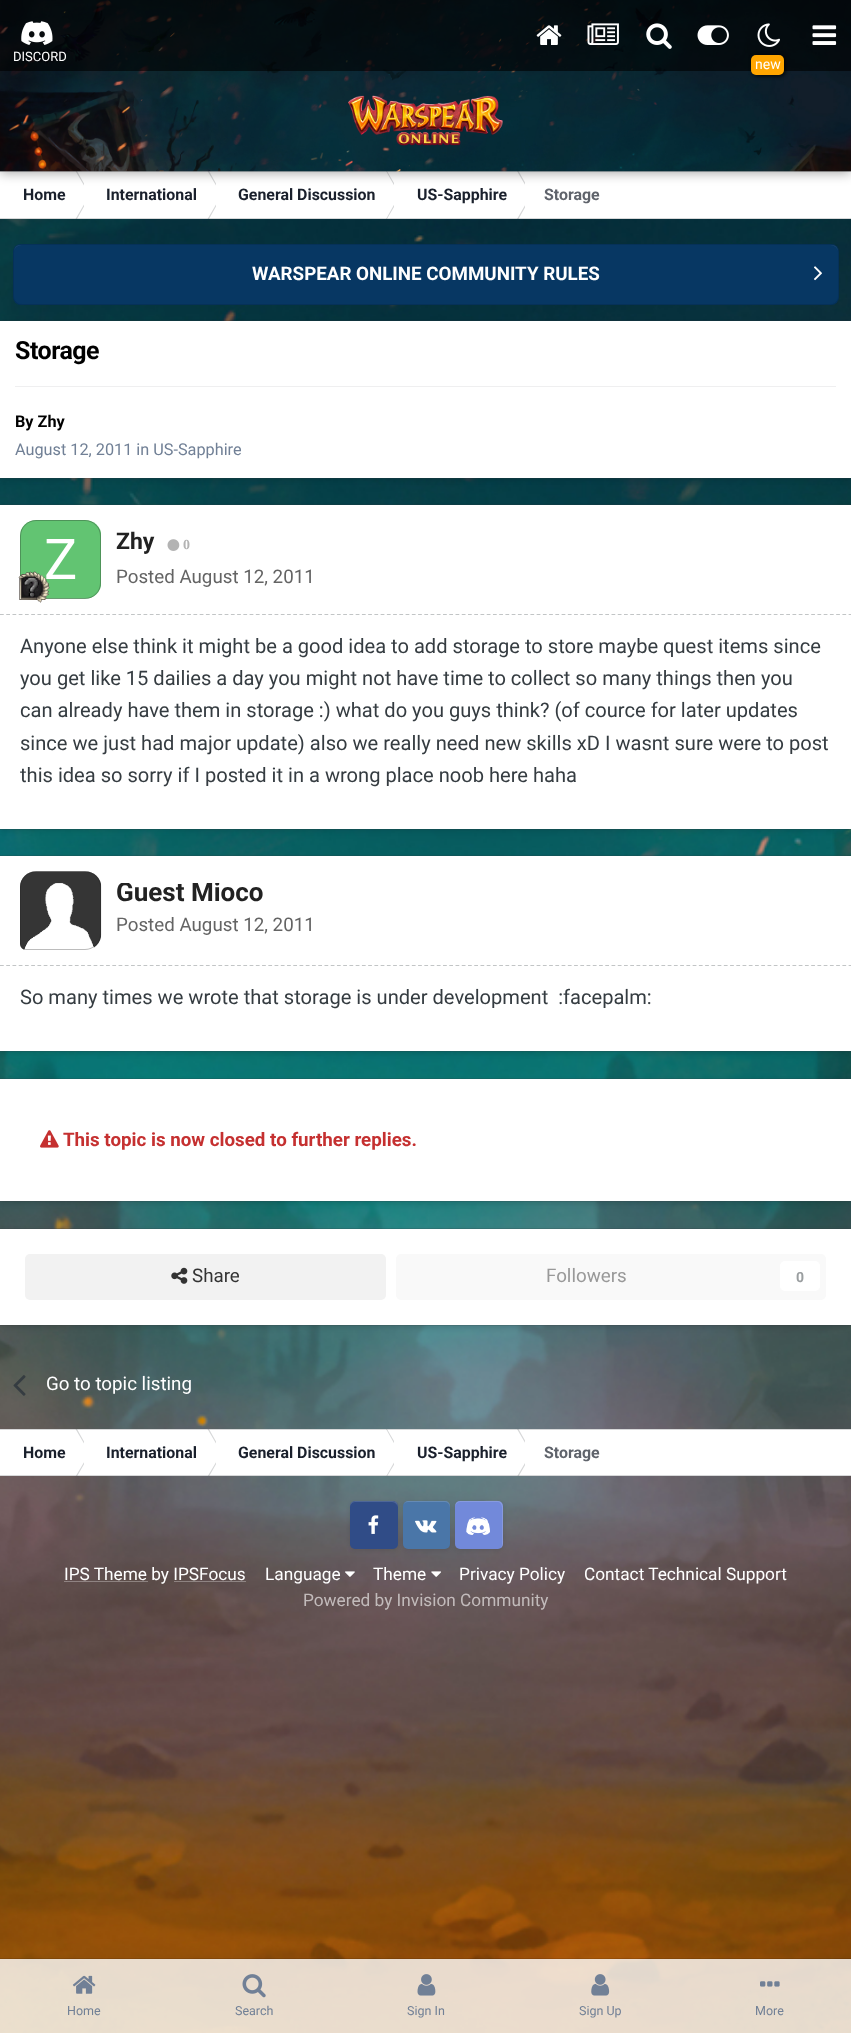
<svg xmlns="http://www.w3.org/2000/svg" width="851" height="2033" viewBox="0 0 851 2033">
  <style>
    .t1 { font: 13px Roboto; fill: #fff; }
    .t2 { font: 14px Roboto; fill: #fff; }
    .t3 { font: bold 15.9px Roboto; fill: #1a202c; }
    .t4 { font: bold 15.9px Roboto; fill: #5f636b; }
    .t5 { font: bold 18.75px Roboto; fill: #fff; }
    .t6 { font: bold 25px Roboto; letter-spacing: -0.5px; fill: #000; }
    .t7 { font: bold 16.25px Roboto; fill: #000; }
    .t8 { font: 16.25px Roboto; fill: #718096; }
    .t9 { font: bold 23px Roboto; fill: #222; }
    .t10 { font: bold 14px Liberation Serif; fill: #b3b3b3; }
    .t11 { font: 18.75px Roboto; fill: #646464; }
    .t12 { font: 20.1px Roboto; fill: #353c41; }
    .t13 { font: bold 26px Roboto; fill: #222; }
    .t14 { font: bold 18.75px Roboto; fill: #c53030; }
    .t15 { font: 18.75px Roboto; fill: #333; }
    .t16 { font: 18.75px Roboto; fill: #999; }
    .t17 { font: bold 14px Roboto; fill: #9a9ea0; }
    .t18 { font: 18.75px Roboto; fill: #fff; }
    .t19 { font: 17.25px Roboto; fill: #fff; }
    .t20 { font: 17.25px Roboto; fill: #c2bbbb; }
    .t21 { font: 12.5px Roboto; fill: #718096; }
  </style>
  <defs>
    <clipPath id="clip1"><rect x="0" y="171" width="84" height="48"/></clipPath>
    <clipPath id="clip2"><rect x="84" y="171" width="132" height="48"/></clipPath>
    <clipPath id="clip3"><rect x="216" y="171" width="178" height="48"/></clipPath>
    <clipPath id="clip4"><rect x="394" y="171" width="131" height="48"/></clipPath>
    <clipPath id="clip5"><rect x="116" y="883" width="160" height="20"/></clipPath>
    <clipPath id="clip6"><rect x="0" y="1429" width="84" height="47"/></clipPath>
    <clipPath id="clip7"><rect x="84" y="1429" width="132" height="47"/></clipPath>
    <clipPath id="clip8"><rect x="216" y="1429" width="178" height="47"/></clipPath>
    <clipPath id="clip9"><rect x="394" y="1429" width="131" height="47"/></clipPath>
  </defs>
  <rect width="100%" height="100%" fill="#fff"/>
  <image x="0" y="219" width="851" height="1814" href="images/1.png"/>
  <g clip-path="url(#clip1)">
    <path d="M75.5 171H77L90.5 195H89.5ZM75.5 219H77L90.5 195H89.5Z" fill="#d7d8d9"/>
  </g>
  <g clip-path="url(#clip2)">
    <path d="M207.5 171H209L222.5 195H221.5ZM207.5 219H209L222.5 195H221.5Z" fill="#d7d8d9"/>
  </g>
  <g clip-path="url(#clip3)">
    <path d="M386 171H387L401 195H399.5ZM386 219H387L401 195H399.5Z" fill="#d7d8d9"/>
  </g>
  <g clip-path="url(#clip4)">
    <path d="M517 171H518.5L532 195H531ZM517 219H518.5L532 195H531Z" fill="#d7d8d9"/>
  </g>
  <rect x="0" y="171" width="851" height="1" fill="#353c4133"/>
  <rect x="0" y="1" width="851" height="172" fill="#00000059" filter="blur(6px)"/>
  <image x="0" y="0" width="851" height="172" href="images/2.png"/>
  <rect x="0" y="0" width="851" height="71" fill="#00000099"/>
  <image x="536" y="25" width="26" height="20" href="images/3.png"/>
  <image x="587" y="23" width="32" height="22" href="images/4.png"/>
  <image x="646" y="23" width="26" height="26" href="images/5.png"/>
  <image x="697" y="25" width="32" height="20" href="images/6.png"/>
  <image x="812" y="25" width="25" height="20" href="images/7.png"/>
  <image x="21" y="21" width="32" height="24" href="images/8.png"/>
  <text x="13" y="61" class="t1">DISCORD</text>
  <image x="757" y="23" width="23" height="24" href="images/9.png"/>
  <rect x="753" y="56" width="32" height="20" rx="5" fill="#000" filter="blur(2px)"/>
  <rect x="751" y="55" width="33" height="20" rx="5" fill="#ffa500"/>
  <text x="755" y="69" class="t2">new</text>
  <image x="348" y="95" width="155" height="51" href="images/10.png"/>
  <rect x="0" y="218" width="851" height="1" fill="#353c4133"/>
  <text x="23" y="200" class="t3">Home</text>
  <text x="106" y="200" class="t3">International</text>
  <text x="238" y="200" class="t3">General Discussion</text>
  <text x="417" y="200" class="t3">US-Sapphire</text>
  <text x="544" y="200" class="t4">Storage</text>
  <rect x="13" y="244" width="826" height="61" rx="8" fill="#073763"/>
  <path d="M20 246H831C835 246 838 249 838 252C838 248 836 245 832 245H20C16 245 14 248 14 252C14 249 17 246 20 246Z" fill="#204b73"/>
  <rect x="13.5" y="244.5" width="825" height="60" rx="7.5" fill="none" stroke="#0000001a"/>
  <rect x="14" y="245" width="824" height="59" rx="8" fill="#073763"/>
  <text x="252" y="280" class="t5">WARSPEAR ONLINE COMMUNITY RULES</text>
  <image x="814" y="266" width="8" height="15" href="images/11.png"/>
  <rect x="1" y="324" width="849" height="156" fill="#0000001a" filter="blur(2.5px)"/>
  <rect x="0" y="321" width="851" height="157" fill="#fff"/>
  <rect x="0" y="320" width="851" height="1" fill="#353c4133"/>
  <rect x="0" y="478" width="851" height="1" fill="#353c4133"/>
  <text x="15" y="359" class="t6">Storage</text>
  <rect x="15" y="386" width="821" height="1" fill="#efeff0"/>
  <text x="15" y="427" class="t7">By Zhy</text>
  <text x="15" y="455" class="t8">August 12, 2011 in US-Sapphire</text>
  <rect x="1" y="508" width="849" height="323" fill="#0000001a" filter="blur(2.5px)"/>
  <rect x="0" y="505" width="851" height="324" fill="#fff"/>
  <rect x="0" y="504" width="851" height="1" fill="#353c4133"/>
  <rect x="0" y="829" width="851" height="1" fill="#353c4133"/>
  <path d="M0 614.5H851" fill="none" stroke="#c2c5c6" stroke-width="1.2" stroke-dasharray="3.75 2.49"/>
  <image x="20" y="520" width="81" height="79" href="images/12.png"/>
  <path d="M36 520.5H85C93.5 520.5 100.5 527.5 100.5 536V583C100.5 591.5 93.5 598.5 85 598.5H26C23 598.5 20.5 596 20.5 593V536C20.5 527.5 27.5 520.5 36 520.5Z" fill="none" stroke="#2222224d"/>
  <image x="18" y="571" width="32" height="32" href="images/13.png"/>
  <text x="116" y="549" class="t9">Zhy</text>
  <image x="167" y="539" width="13" height="12" href="images/14.png"/>
  <text x="183" y="549" class="t10">0</text>
  <text x="116" y="583" class="t11">Posted August 12, 2011</text>
  <text x="20" y="653" class="t12">Anyone else think it might be a good idea to add storage to store maybe quest items since</text>
  <text x="20" y="685" class="t12">you get like 15 dailies a day you might not have time to collect so many things then you</text>
  <text x="20" y="717" class="t12">can already have them in storage :) what do you guys think? (of cource for later updates</text>
  <text x="20" y="750" class="t12">since we just had major update) also we really need new skills xD I wasnt sure were to post</text>
  <text x="20" y="782" class="t12">this idea so sorry if I posted it in a wrong place noob here haha</text>
  <rect x="1" y="859" width="849" height="195" fill="#0000001a" filter="blur(2.5px)"/>
  <rect x="0" y="856" width="851" height="195" fill="#fff"/>
  <rect x="0" y="855" width="851" height="1" fill="#353c4133"/>
  <rect x="0" y="1051" width="851" height="1" fill="#353c4133"/>
  <path d="M0 965.5H851" fill="none" stroke="#c2c5c6" stroke-width="1.2" stroke-dasharray="3.75 2.49"/>
  <image x="20" y="871" width="82" height="79" href="images/15.png"/>
  <path d="M36 871.5H85C93.5 871.5 100.5 878.5 100.5 887V934C100.5 942.5 93.5 949.5 85 949.5H26C23 949.5 20.5 947 20.5 944V887C20.5 878.5 27.5 871.5 36 871.5Z" fill="none" stroke="#2222224d"/>
  <g clip-path="url(#clip5)">
    <text x="116" y="901" class="t13">Guest Mioco</text>
  </g>
  <text x="116" y="931" class="t11">Posted August 12, 2011</text>
  <text x="20" y="1004" class="t12" xml:space="preserve">So many times we wrote that storage is under development  :facepalm:</text>
  <rect x="1" y="1081" width="849" height="123" fill="#0000001a" filter="blur(2.5px)"/>
  <rect x="0" y="1079" width="851" height="122" fill="#fff"/>
  <rect x="0" y="1078" width="851" height="1" fill="#353c4133"/>
  <rect x="0" y="1201" width="851" height="1" fill="#353c4133"/>
  <image x="40" y="1130" width="19" height="18" href="images/16.png"/>
  <text x="63" y="1146" class="t14">This topic is now closed to further replies.</text>
  <rect x="1" y="1231" width="849" height="97" fill="#0000001a" filter="blur(2.5px)"/>
  <rect x="0" y="1229" width="851" height="96" fill="#fff"/>
  <rect x="0" y="1228" width="851" height="1" fill="#353c4133"/>
  <rect x="0" y="1325" width="851" height="1" fill="#353c4133"/>
  <rect x="25" y="1254" width="361" height="46" rx="5" fill="#f2f2f2"/>
  <image x="171" y="1267" width="17" height="17" href="images/17.png"/>
  <text x="192" y="1282" class="t15">Share</text>
  <rect x="396" y="1254" width="430" height="46" rx="5" fill="#f9f9f9"/>
  <text x="546" y="1282" class="t16">Followers</text>
  <rect x="780" y="1261" width="40" height="30" rx="5" fill="#fff"/>
  <text x="796" y="1282" class="t17">0</text>
  <image x="13" y="1375" width="13" height="21" href="images/18.png"/>
  <text x="46" y="1390" class="t18">Go to topic listing</text>
  <rect x="0" y="1429" width="851" height="47" fill="#fff"/>
  <g clip-path="url(#clip6)">
    <path d="M75.5 1429H77L90.5 1453H89.5ZM75.5 1476.5H77L90.5 1453H89.5Z" fill="#d7d8d9"/>
  </g>
  <g clip-path="url(#clip7)">
    <path d="M207.5 1429H209L222.5 1453H221.5ZM207.5 1476.5H209L222.5 1453H221.5Z" fill="#d7d8d9"/>
  </g>
  <g clip-path="url(#clip8)">
    <path d="M386 1429H387L401 1453H399.5ZM386 1476.5H387L401 1453H399.5Z" fill="#d7d8d9"/>
  </g>
  <g clip-path="url(#clip9)">
    <path d="M517 1429H518.5L532 1453H531ZM517 1476.5H518.5L532 1453H531Z" fill="#d7d8d9"/>
  </g>
  <rect x="0" y="1429" width="851" height="1" fill="#353c4133"/>
  <rect x="0" y="1475" width="851" height="1" fill="#353c4133"/>
  <text x="23" y="1458" class="t3">Home</text>
  <text x="106" y="1458" class="t3">International</text>
  <text x="238" y="1458" class="t3">General Discussion</text>
  <text x="417" y="1458" class="t3">US-Sapphire</text>
  <text x="544" y="1458" class="t4">Storage</text>
  <rect x="350" y="1503" width="48" height="47" rx="5" fill="#0000001a" filter="blur(2px)"/>
  <rect x="350" y="1501" width="48" height="48" rx="5" fill="#304c87"/>
  <path d="M355 1502C352 1502 350 1505 350 1508C350 1500 354 1501 361 1501H387C394 1501 398 1500 398 1508C398 1505 395 1502 392 1502Z" fill="#ffffff26"/>
  <image x="368" y="1515" width="11" height="19" href="images/19.png"/>
  <rect x="403" y="1503" width="47" height="47" rx="5" fill="#0000001a" filter="blur(2px)"/>
  <rect x="403" y="1501" width="47" height="48" rx="5" fill="#4a76a8"/>
  <path d="M408 1502H445C448 1502 450 1505 450 1508V1506C450 1503 448 1501 445 1501H408C406 1501 404 1503 403 1505C404 1503 406 1502 408 1502Z" fill="#ffffff26"/>
  <image x="415" y="1520" width="22" height="13" href="images/20.png"/>
  <rect x="455" y="1503" width="48" height="47" rx="5" fill="#0000001a" filter="blur(2px)"/>
  <rect x="455" y="1501" width="48" height="48" rx="5" fill="#7289da"/>
  <image x="466" y="1517" width="24" height="18" href="images/21.png"/>
  <path d="M460 1502C457 1502 455 1505 455 1508C455 1500 459 1501 466 1501H479C507 1501 503 1497 503 1525V1538C503 1541 504 1545 501 1548L502 1545V1508C502 1505 500 1502 498 1502Z" fill="#ffffff26"/>
  <rect x="64" y="1581" width="84" height="1" fill="#ffffff4d"/>
  <text x="64" y="1580" class="t19">IPS Theme by IPSFocus</text>
  <rect x="174" y="1581" width="72" height="1" fill="#ffffff4d"/>
  <text x="265" y="1580" class="t19">Language</text>
  <image x="345" y="1571" width="10" height="6" href="images/22.png"/>
  <text x="373" y="1580" class="t19">Theme</text>
  <image x="431" y="1571" width="10" height="6" href="images/23.png"/>
  <text x="459" y="1580" class="t19">Privacy Policy</text>
  <text x="584" y="1580" class="t19">Contact Technical Support</text>
  <text x="303" y="1606" class="t20">Powered by Invision Community</text>
  <rect x="0" y="1958" width="851" height="1" fill="#0000001a"/>
  <rect x="0" y="1959" width="851" height="74" fill="#ffffffcc"/>
  <image x="72" y="1975" width="24" height="19" href="images/24.png"/>
  <text x="67" y="2015" class="t21">Home</text>
  <image x="242" y="1974" width="24" height="24" href="images/25.png"/>
  <text x="235" y="2015" class="t21">Search</text>
  <image x="417" y="1974" width="19" height="22" href="images/26.png"/>
  <text x="407" y="2015" class="t21">Sign In</text>
  <image x="591" y="1974" width="19" height="22" href="images/27.png"/>
  <text x="579" y="2015" class="t21">Sign Up</text>
  <image x="760" y="1981" width="20" height="6" href="images/28.png"/>
  <text x="755" y="2015" class="t21">More</text>
</svg>
